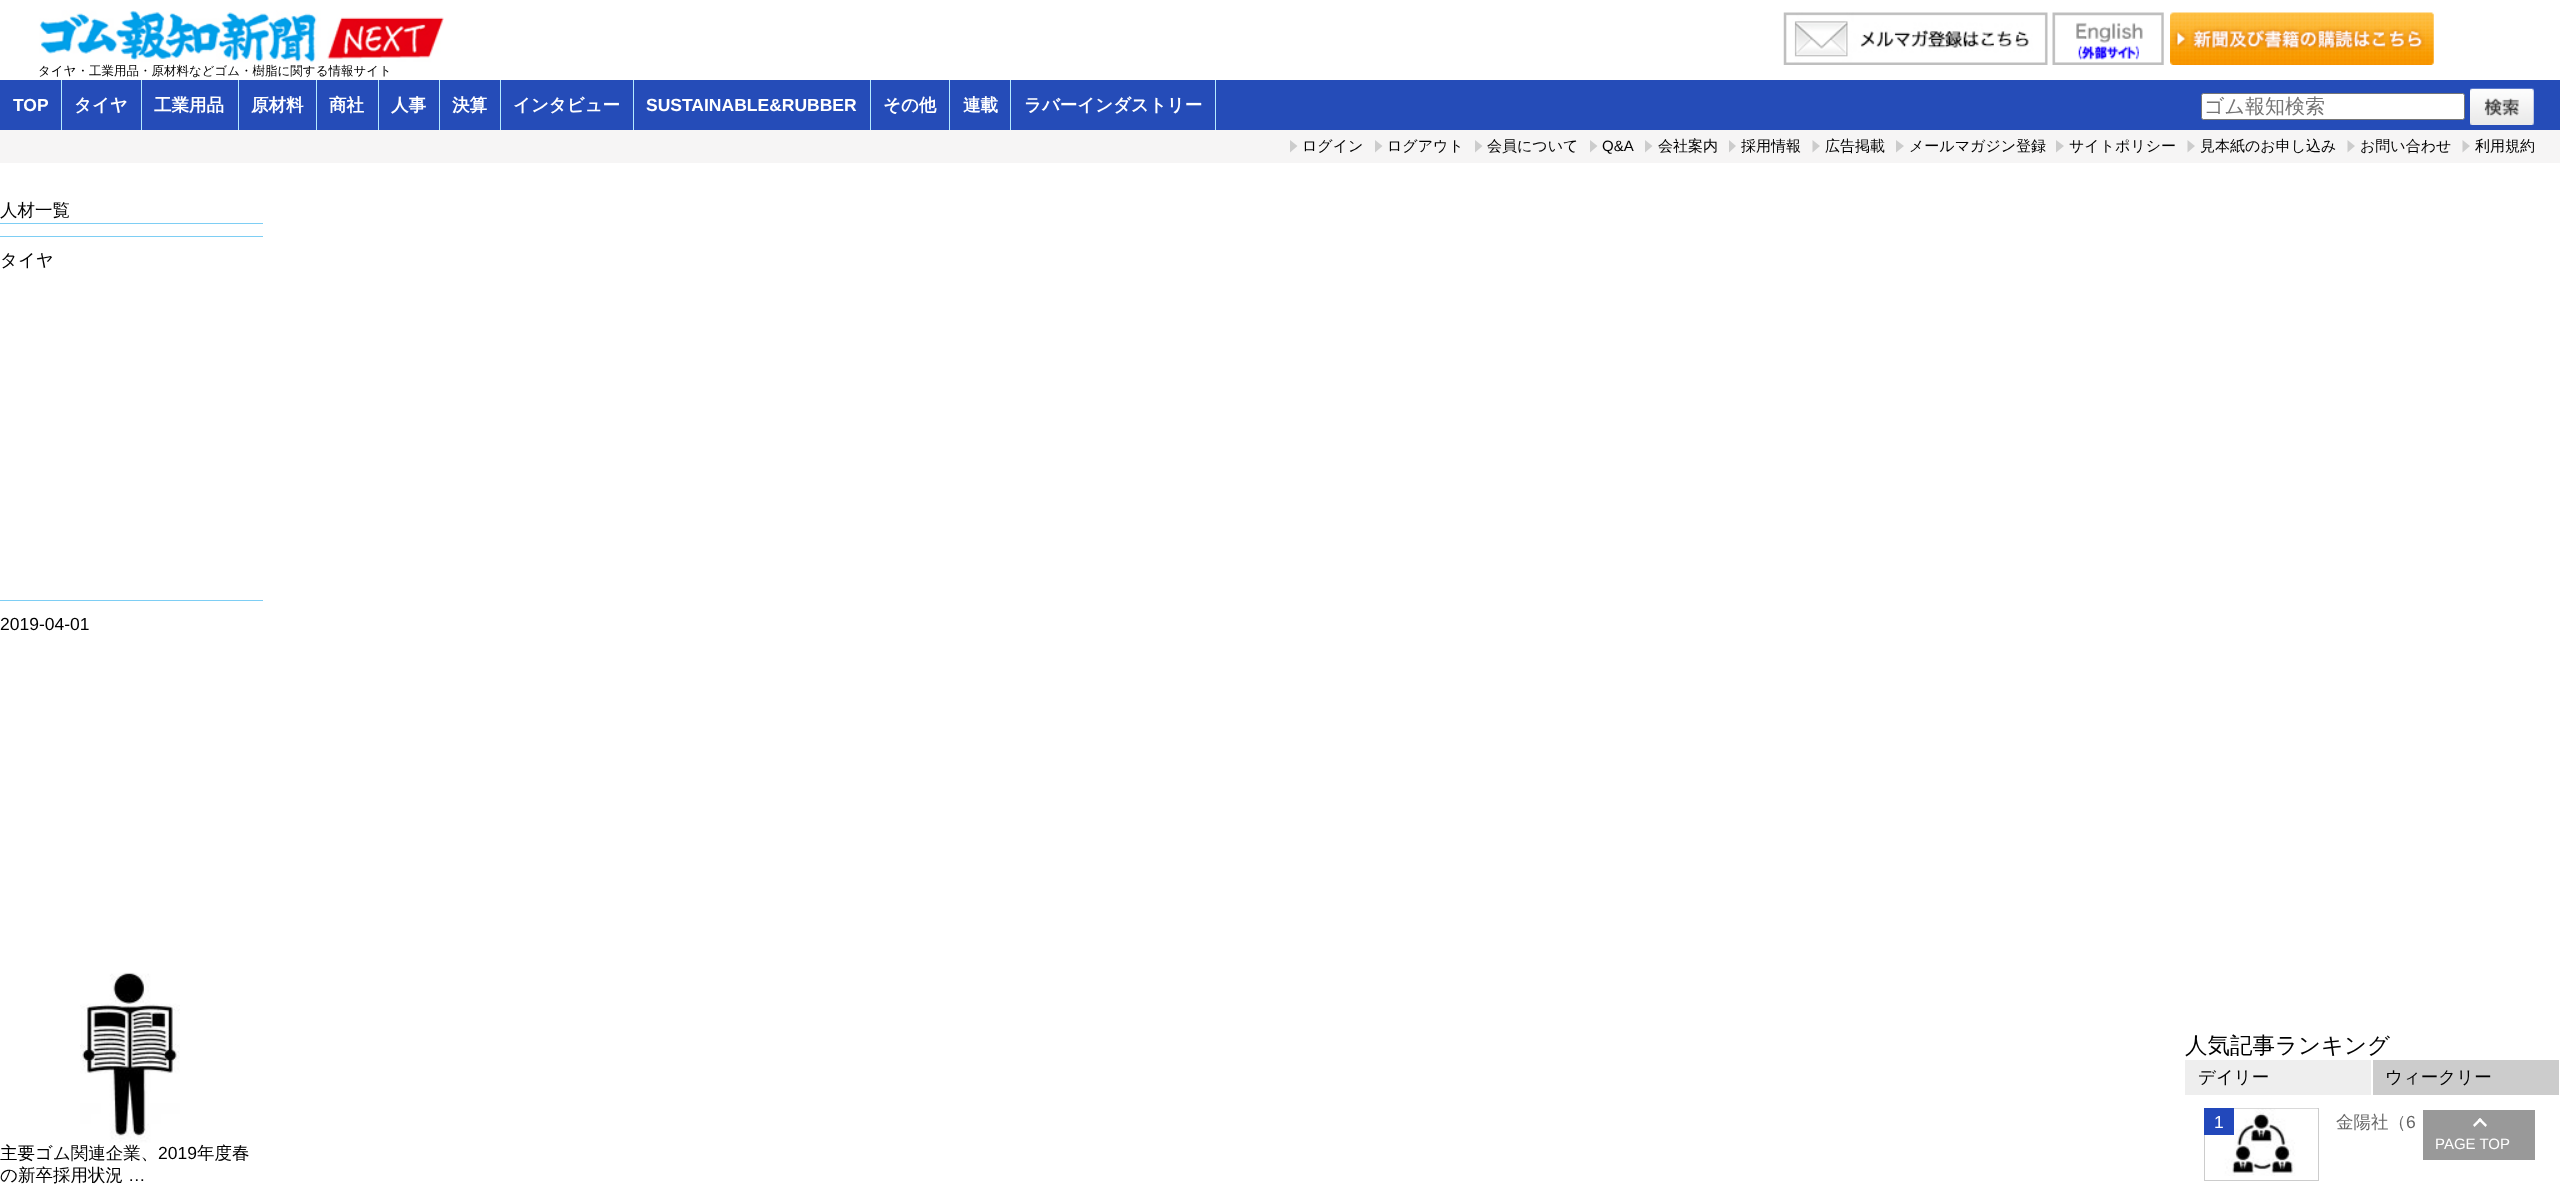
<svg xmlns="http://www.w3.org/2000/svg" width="2560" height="1185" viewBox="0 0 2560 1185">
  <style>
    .t1 { font: 500 12.5px WenQuanYi Zen Hei; fill: #000; }
    .t2 { font: bold 17.5px Liberation Sans; fill: #fff; }
    .t3 { font: bold 17.5px WenQuanYi Zen Hei; fill: #fff; }
    .t4 { font: 500 20px WenQuanYi Zen Hei; fill: #757575; }
    .t5 { font: 500 15px WenQuanYi Zen Hei; fill: #000; }
    .t6 { font: 15px Liberation Sans; fill: #000; }
    .t7 { font: 500 17.5px WenQuanYi Zen Hei; fill: #000; }
    .t8 { font: 17.5px Liberation Sans; fill: #000; }
    .t9 { font: 500 22.5px WenQuanYi Zen Hei; fill: #000; }
    .t10 { font: 500 17.5px WenQuanYi Zen Hei; fill: #666; }
    .t11 { font: 17.5px Liberation Sans; fill: #666; }
    .t12 { font: 17.5px Liberation Sans; fill: #fff; }
    .t13 { font: 15px Liberation Sans; fill: #fff; }
  </style>
  <rect width="100%" height="100%" fill="#fff"/>
  <image x="1783" y="12" width="265" height="53" href="images/1.png"/>
  <image x="2052" y="12" width="112" height="53" href="images/2.png"/>
  <image x="2170" y="12" width="264" height="53" href="images/3.png"/>
  <image x="39" y="10" width="405" height="53" href="images/4.png"/>
  <text x="38" y="75" class="t1">タイヤ・工業用品・原材料などゴム・樹脂に関する情報サイト</text>
  <rect x="0" y="80" width="2560" height="50" fill="#254cb8"/>
  <rect x="61" y="80" width="1" height="50" fill="#b5ebff"/>
  <text x="13" y="111" class="t2">TOP</text>
  <rect x="141" y="80" width="1" height="50" fill="#b5ebff"/>
  <text x="74" y="111" class="t3">タイヤ</text>
  <rect x="238" y="80" width="1" height="50" fill="#b5ebff"/>
  <text x="154" y="111" class="t3">工業用品</text>
  <rect x="316" y="80" width="1" height="50" fill="#b5ebff"/>
  <text x="251" y="111" class="t3">原材料</text>
  <rect x="378" y="80" width="1" height="50" fill="#b5ebff"/>
  <text x="329" y="111" class="t3">商社</text>
  <rect x="439" y="80" width="1" height="50" fill="#b5ebff"/>
  <text x="391" y="111" class="t3">人事</text>
  <rect x="500" y="80" width="1" height="50" fill="#b5ebff"/>
  <text x="452" y="111" class="t3">決算</text>
  <rect x="633" y="80" width="1" height="50" fill="#b5ebff"/>
  <text x="513" y="111" class="t3">インタビュー</text>
  <rect x="870" y="80" width="1" height="50" fill="#b5ebff"/>
  <text x="646" y="111" class="t2">SUSTAINABLE&amp;RUBBER</text>
  <rect x="949" y="80" width="1" height="50" fill="#b5ebff"/>
  <text x="883" y="111" class="t3">その他</text>
  <rect x="1010" y="80" width="1" height="50" fill="#b5ebff"/>
  <text x="963" y="111" class="t3">連載</text>
  <rect x="1215" y="80" width="1" height="50" fill="#b5ebff"/>
  <text x="1024" y="111" class="t3">ラバーインダストリー</text>
  <rect x="2201.5" y="93.5" width="263" height="26" rx="2" fill="#fff" stroke="#767676"/>
  <text x="2204" y="113" class="t4">ゴム報知検索</text>
  <image x="2470" y="88" width="64" height="37" href="images/5.png"/>
  <rect x="0" y="130" width="2560" height="33" fill="#f6f5f5"/>
  <path d="M1290 152.5V140L1297.5 146Z" fill="#ccc"/>
  <text x="1302" y="151" class="t5">ログイン</text>
  <path d="M1375 152.5V140L1382.5 146Z" fill="#ccc"/>
  <text x="1387" y="151" class="t5">ログアウト</text>
  <path d="M1475 152.5V140L1482.5 146Z" fill="#ccc"/>
  <text x="1487" y="151" class="t5">会員について</text>
  <path d="M1590 152.5V140L1597.5 146Z" fill="#ccc"/>
  <text x="1602" y="151" class="t6">Q&amp;A</text>
  <path d="M1645 152.5V140L1652.5 146Z" fill="#ccc"/>
  <text x="1658" y="151" class="t5">会社案内</text>
  <path d="M1729 152.5V140L1736 146Z" fill="#ccc"/>
  <text x="1741" y="151" class="t5">採用情報</text>
  <path d="M1812.5 152.5V140L1820 146Z" fill="#ccc"/>
  <text x="1825" y="151" class="t5">広告掲載</text>
  <path d="M1896 152.5V140L1904 146Z" fill="#ccc"/>
  <text x="1909" y="151" class="t5">メールマガジン登録</text>
  <path d="M2056 152.5V140L2064 146Z" fill="#ccc"/>
  <text x="2069" y="151" class="t5">サイトポリシー</text>
  <path d="M2187.5 152.5V140L2195 146Z" fill="#ccc"/>
  <text x="2200" y="151" class="t5">見本紙のお申し込み</text>
  <path d="M2347.5 152.5V140L2355 146Z" fill="#ccc"/>
  <text x="2360" y="151" class="t5">お問い合わせ</text>
  <path d="M2462.5 152.5V140L2470 146Z" fill="#ccc"/>
  <text x="2475" y="151" class="t5">利用規約</text>
  <text x="0" y="216" class="t7">人材一覧</text>
  <rect x="0" y="223" width="263" height="1" fill="#7ecef4"/>
  <rect x="0" y="236" width="263" height="1" fill="#7ecef4"/>
  <text x="0" y="266" class="t7">タイヤ</text>
  <rect x="0" y="600" width="263" height="1" fill="#7ecef4"/>
  <text x="0" y="630" class="t8">2019-04-01</text>
  <image x="80" y="972" width="100" height="171" href="images/6.png"/>
  <text x="0" y="1159" class="t7">主要ゴム関連企業、</text>
  <text x="158" y="1159" class="t8">2019</text>
  <text x="197" y="1159" class="t7">年度春</text>
  <text x="0" y="1181" class="t7">の新卒採用状況</text>
  <text x="128" y="1181" class="t8">…</text>
  <text x="2185" y="1053" class="t9">人気記事ランキング</text>
  <rect x="2185" y="1060" width="186" height="35" fill="#eee"/>
  <text x="2198" y="1083" class="t7">デイリー</text>
  <rect x="2373" y="1060" width="186" height="35" fill="#ccc"/>
  <text x="2385" y="1083" class="t7">ウィークリー</text>
  <rect x="2204.5" y="1108.5" width="114" height="72" fill="none" stroke="#ccc"/>
  <image x="2205" y="1108" width="113" height="68" href="images/7.png"/>
  <text x="2336" y="1128" class="t10">金陽社（</text>
  <text x="2406" y="1128" class="t11">6</text>
  <rect x="2204" y="1108" width="30" height="27" fill="#2248bb"/>
  <text x="2214" y="1128" class="t12">1</text>
  <rect x="2423" y="1110" width="112" height="50" fill="#999"/>
  <path d="M2473 1125L2480 1118L2482 1119.5L2474.5 1127Z" fill="#fff"/>
  <path d="M2478 1119.5L2480 1118L2487 1125L2485.5 1127Z" fill="#fff"/>
  <text x="2435" y="1149" class="t13">PAGE TOP</text>
</svg>
